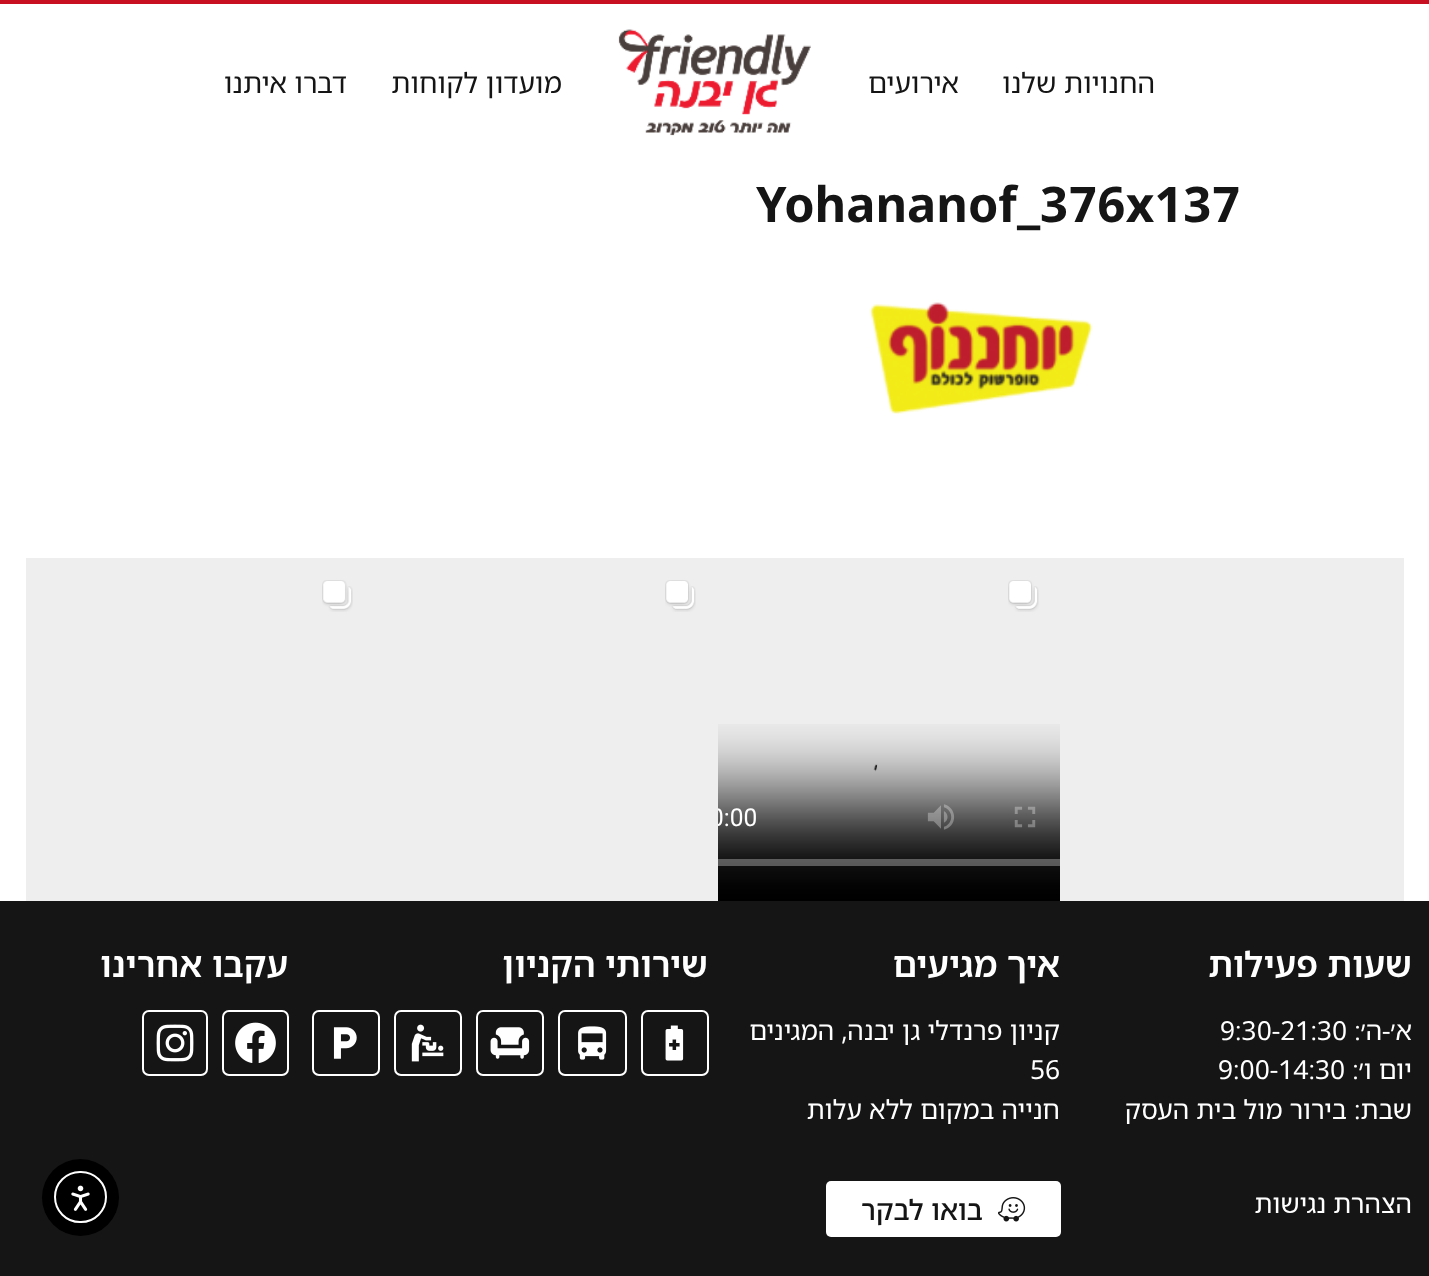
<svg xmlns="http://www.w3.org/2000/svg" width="1429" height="1276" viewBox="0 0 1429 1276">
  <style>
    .t1 { font: 28px Noto Sans Hebrew; direction: rtl; fill: #161515; }
    .t2 { font: bold 49px Noto Sans Hebrew; fill: #161515; }
    .t3 { font: 600 35px Noto Sans Hebrew; direction: rtl; fill: #fff; }
    .t4 { font: 26.25px Noto Sans Hebrew; direction: rtl; fill: #fff; }
    .t5 { font: 26.25px Noto Sans Hebrew; fill: #fff; }
    .t6 { font: 500 28px Noto Sans Hebrew; direction: rtl; fill: #161515; }
  </style>
  <defs>
    <linearGradient id="g1" gradientUnits="userSpaceOnUse" x1="480" y1="649" x2="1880" y2="649"><stop offset="0.1" stop-color="#eee"/><stop offset="0.18" stop-color="#ddd"/><stop offset="0.33" stop-color="#eee"/></linearGradient>
    <linearGradient id="g2" gradientUnits="userSpaceOnUse" x1="137" y1="649" x2="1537" y2="649"><stop offset="0.1" stop-color="#eee"/><stop offset="0.18" stop-color="#ddd"/><stop offset="0.33" stop-color="#eee"/></linearGradient>
    <linearGradient id="g3" gradientUnits="userSpaceOnUse" x1="-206" y1="649" x2="1194" y2="649"><stop offset="0.1" stop-color="#eee"/><stop offset="0.18" stop-color="#ddd"/><stop offset="0.33" stop-color="#eee"/></linearGradient>
    <linearGradient id="g4" gradientUnits="userSpaceOnUse" x1="-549" y1="649" x2="851" y2="649"><stop offset="0.1" stop-color="#eee"/><stop offset="0.18" stop-color="#ddd"/><stop offset="0.33" stop-color="#eee"/></linearGradient>
    <linearGradient id="g5" gradientUnits="userSpaceOnUse" x1="-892" y1="649" x2="508" y2="649"><stop offset="0.1" stop-color="#eee"/><stop offset="0.18" stop-color="#ddd"/><stop offset="0.33" stop-color="#eee"/></linearGradient>
  </defs>
  <rect width="100%" height="100%" fill="#fff"/>
  <rect x="0" y="0" width="1429" height="4" fill="#c80e21"/>
  <text x="1155" y="93" class="t1">החנויות שלנו</text>
  <text x="959" y="93" class="t1">אירועים</text>
  <image x="618" y="29" width="193" height="107" href="images/1.png"/>
  <text x="562" y="93" class="t1">מועדון לקוחות</text>
  <text x="347" y="93" class="t1">דברו איתנו</text>
  <text x="756" y="222" class="t2">Yohananof_376x137</text>
  <image x="869" y="302" width="224" height="112" href="images/2.png"/>
  <rect x="1061" y="558" width="343" height="343" fill="url(#g1)"/>
  <rect x="718" y="558" width="343" height="343" fill="url(#g2)"/>
  <image x="1008" y="580" width="31" height="32" href="images/3.png"/>
  <image x="718" y="724" width="342" height="177" href="images/4.png"/>
  <rect x="375" y="558" width="343" height="343" fill="url(#g3)"/>
  <image x="665" y="580" width="31" height="32" href="images/3.png"/>
  <rect x="32" y="558" width="343" height="343" fill="url(#g4)"/>
  <image x="322" y="580" width="31" height="32" href="images/5.png"/>
  <rect x="26" y="558" width="6" height="343" fill="url(#g5)"/>
  <rect x="0" y="901" width="1429" height="375" fill="#161515"/>
  <text x="1412" y="977" class="t3">שעות פעילות</text>
  <text x="1412" y="1040" class="t4">א׳-ה׳:</text>
  <text x="1220" y="1040" class="t5">9:30-21:30</text>
  <text x="1412" y="1079" class="t4">יום ו׳:</text>
  <text x="1218" y="1079" class="t5">9:00-14:30</text>
  <text x="1412" y="1119" class="t4">שבת: בירור מול בית העסק</text>
  <text x="1412" y="1213" class="t4">הצהרת נגישות</text>
  <text x="1060" y="977" class="t3">איך מגיעים</text>
  <text x="1060" y="1040" class="t4">קניון פרנדלי גן יבנה, המגינים</text>
  <text x="1030" y="1079" class="t5">56</text>
  <text x="1060" y="1119" class="t4">חנייה במקום ללא עלות</text>
  <rect x="826" y="1181" width="235" height="56" rx="5" fill="#fff"/>
  <image x="998" y="1197" width="28" height="25" href="images/6.png"/>
  <text x="983" y="1220" class="t6">בואו לבקר</text>
  <text x="708" y="977" class="t3">שירותי הקניון</text>
  <rect x="642" y="1011" width="66" height="64" rx="6" fill="none" stroke="#fff" stroke-width="2"/>
  <image x="665" y="1025" width="19" height="36" href="images/7.png"/>
  <rect x="559" y="1011" width="67" height="64" rx="6" fill="none" stroke="#fff" stroke-width="2"/>
  <image x="578" y="1026" width="29" height="34" href="images/8.png"/>
  <rect x="477" y="1011" width="66" height="64" rx="6" fill="none" stroke="#fff" stroke-width="2"/>
  <image x="490" y="1027" width="40" height="32" href="images/9.png"/>
  <rect x="395" y="1011" width="66" height="64" rx="6" fill="none" stroke="#fff" stroke-width="2"/>
  <image x="411" y="1024" width="33" height="38" href="images/10.png"/>
  <rect x="313" y="1011" width="66" height="64" rx="6" fill="none" stroke="#fff" stroke-width="2"/>
  <image x="333" y="1027" width="24" height="32" href="images/11.png"/>
  <text x="288" y="977" class="t3">עקבו אחרינו</text>
  <rect x="223" y="1011" width="65" height="64" rx="6" fill="none" stroke="#fff" stroke-width="2"/>
  <image x="235" y="1022" width="41" height="41" href="images/12.png"/>
  <rect x="143" y="1011" width="64" height="64" rx="6" fill="none" stroke="#fff" stroke-width="2"/>
  <image x="156" y="1024" width="38" height="38" href="images/13.png"/>
  <circle cx="80.5" cy="1197.5" r="38.5" fill="#000"/>
  <rect x="55" y="1172" width="51" height="50" rx="25" fill="none" stroke="#fff" stroke-width="2"/>
  <image x="71" y="1185" width="19" height="26" href="images/14.png"/>
</svg>
